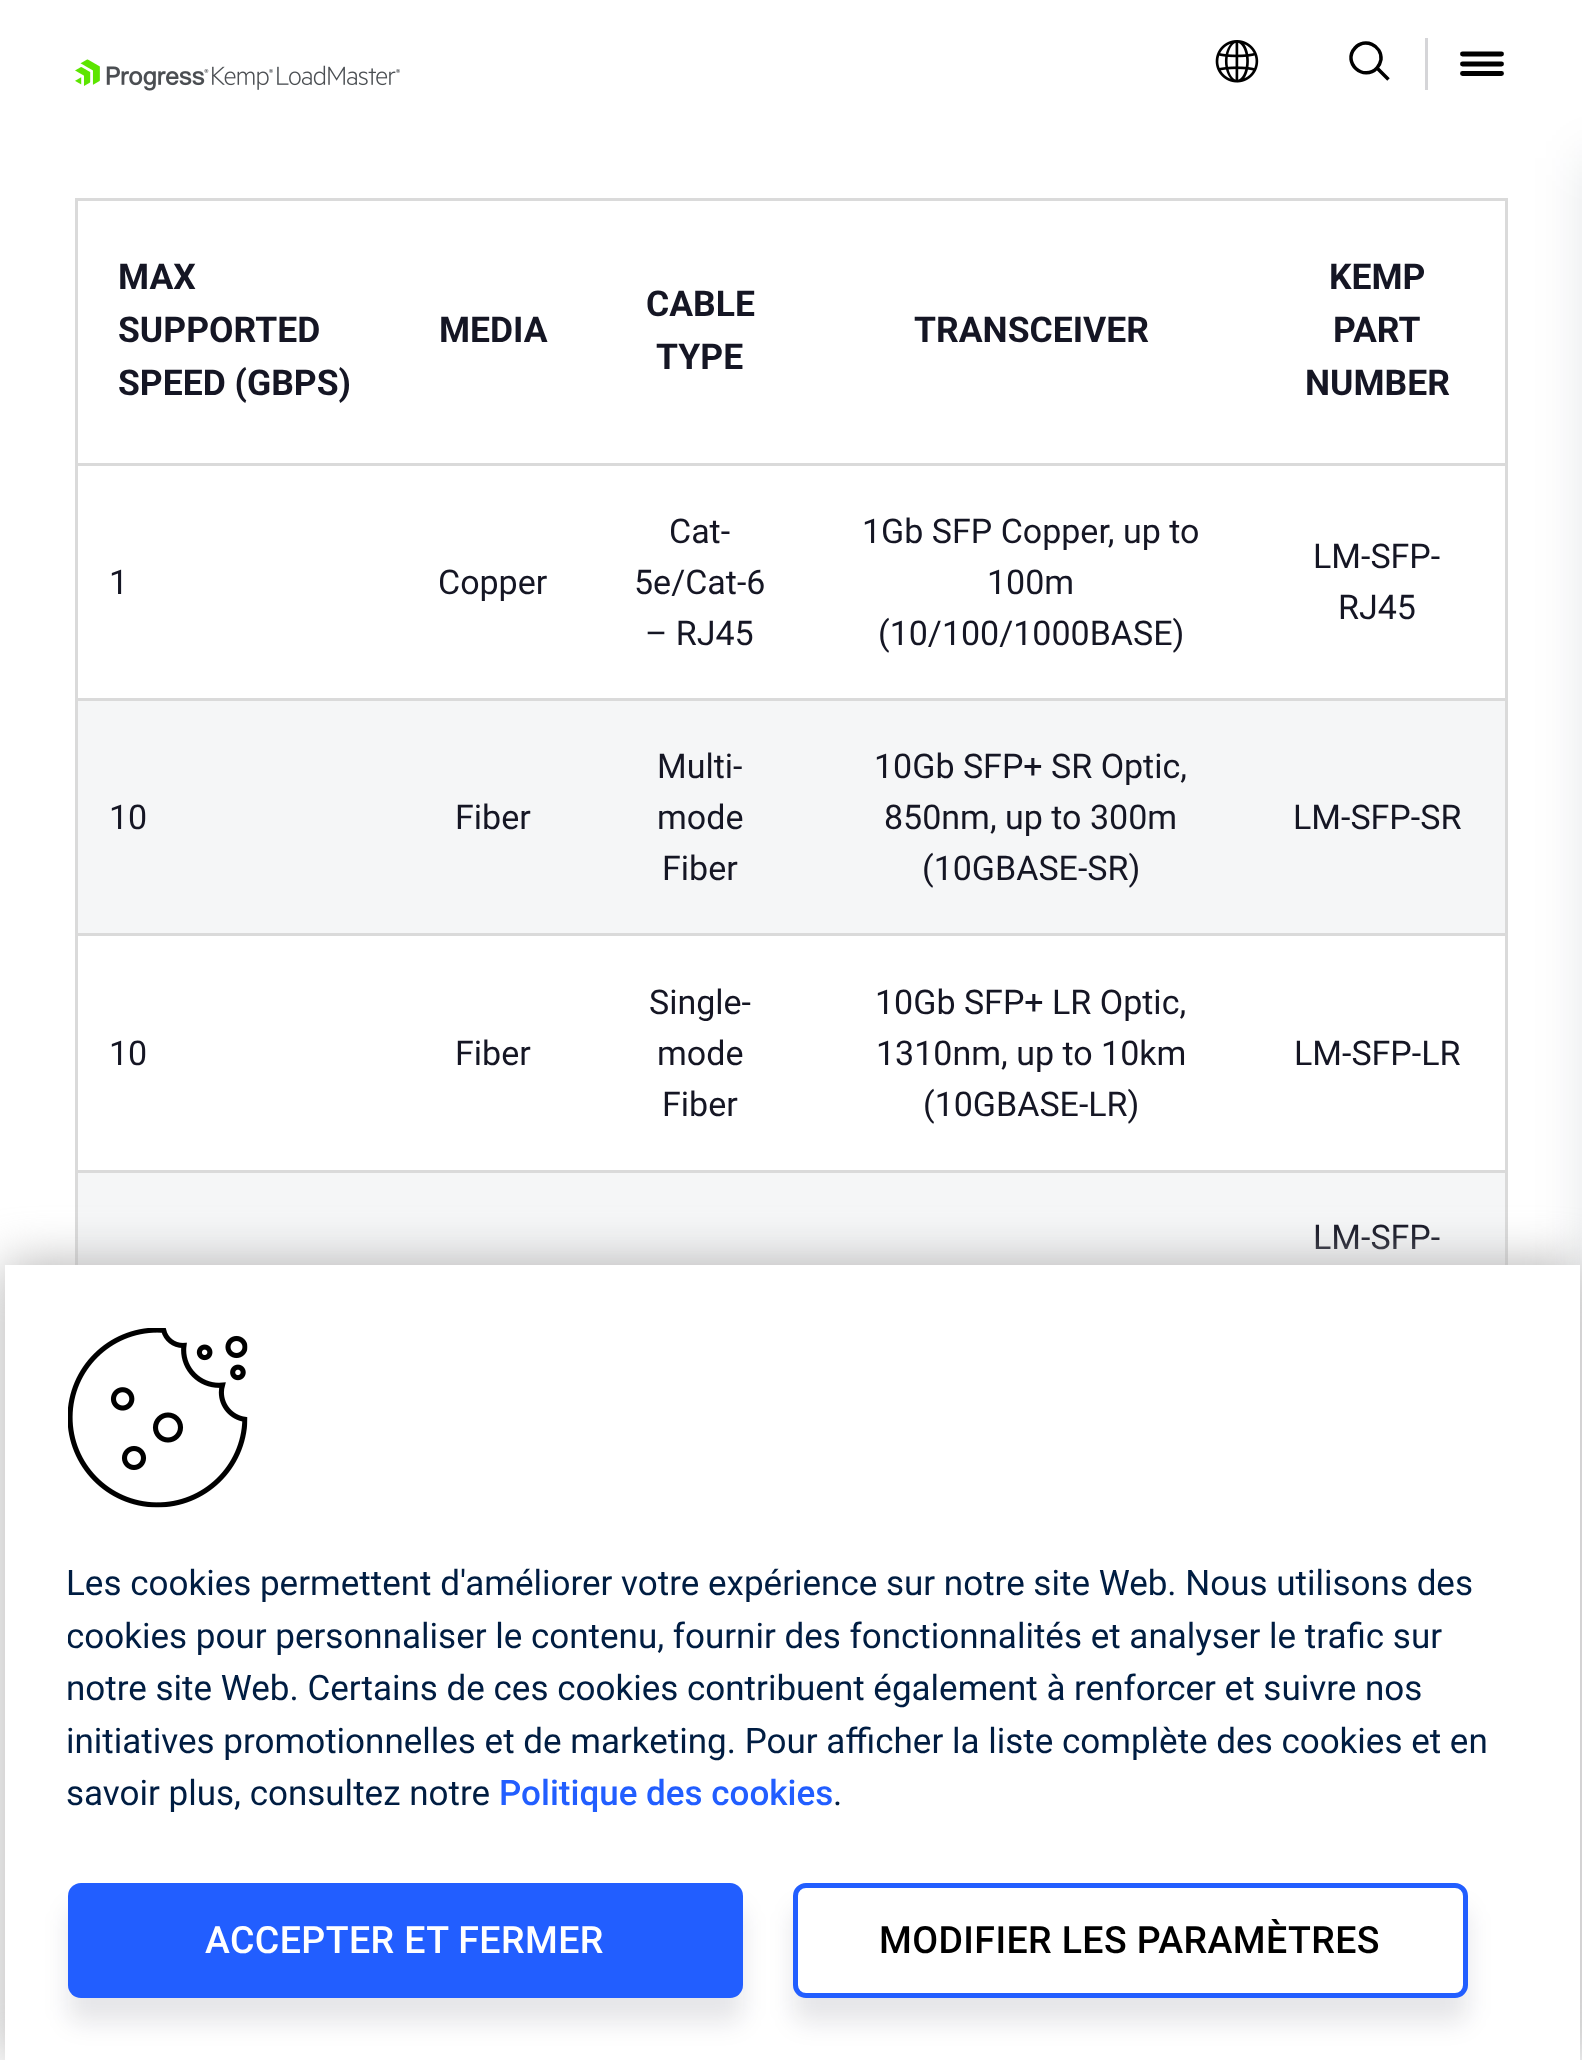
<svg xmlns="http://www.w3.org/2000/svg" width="1582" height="2060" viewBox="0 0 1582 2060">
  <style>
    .t1 { font: bold 35.5px Roboto; fill: #151624; }
    .t2 { font: 34px Roboto; fill: #151624; }
    .t3 { font: 35px Roboto; fill: #001d42; }
    .t4 { font: 500 35px Roboto; fill: #225eff; }
    .t5 { font: 500 37.5px Roboto; letter-spacing: 0.4px; fill: #fff; }
    .t6 { font: 500 37.5px Roboto; letter-spacing: 0.4px; fill: #000; }
  </style>
  <defs>
    <clipPath id="clip1"><rect x="68" y="1558" width="1450" height="325"/></clipPath>
    <clipPath id="clip2"><path d="M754 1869H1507V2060H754ZM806 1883H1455C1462 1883 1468 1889 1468 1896V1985C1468 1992 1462 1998 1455 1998H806C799 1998 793 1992 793 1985V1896C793 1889 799 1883 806 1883Z" clip-rule="evenodd"/></clipPath>
  </defs>
  <rect width="100%" height="100%" fill="#fff"/>
  <rect x="1425" y="38" width="3" height="52" fill="#d5d5d8"/>
  <path d="M1462.5 54H1501.5M1462.5 64H1501.5M1462.5 73.5H1501.5" fill="none" stroke="#000" stroke-width="4.9" stroke-linecap="round"/>
  <image x="75" y="59" width="325" height="32" href="images/1.png"/>
  <image x="1215" y="40" width="44" height="43" href="images/2.png"/>
  <path d="M1377 68C1363.5 82 1342 62.5 1355 48C1364.5 37.5 1382 45 1381 59.5C1380.5 62.5 1379 65.5 1377 68ZM1377 68L1388.5 79.5" fill="none" stroke="#000" stroke-width="3.5"/>
  <rect x="75" y="198" width="1433" height="3" fill="#dadada"/>
  <rect x="1505" y="198" width="3" height="1067" fill="#dadada"/>
  <rect x="75" y="198" width="3" height="1067" fill="#dadada"/>
  <rect x="75" y="463" width="1433" height="3" fill="#dadada"/>
  <rect x="75" y="698" width="1433" height="3" fill="#dadada"/>
  <rect x="75" y="933" width="1433" height="3" fill="#dadada"/>
  <rect x="75" y="1170" width="1433" height="3" fill="#dadada"/>
  <rect x="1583" y="158" width="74" height="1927" fill="#04142b1a" filter="blur(25px)"/>
  <text x="118" y="289" class="t1">MAX</text>
  <text x="118" y="342" class="t1">SUPPORTED</text>
  <text x="118" y="395" class="t1">SPEED (GBPS)</text>
  <text x="439" y="342" class="t1">MEDIA</text>
  <text x="646" y="316" class="t1">CABLE</text>
  <text x="656" y="369" class="t1">TYPE</text>
  <text x="914" y="342" class="t1">TRANSCEIVER</text>
  <text x="1329" y="289" class="t1">KEMP</text>
  <text x="1333" y="342" class="t1">PART</text>
  <text x="1305" y="395" class="t1">NUMBER</text>
  <text x="109" y="594" class="t2">1</text>
  <text x="438" y="594" class="t2">Copper</text>
  <text x="669" y="543" class="t2">Cat-</text>
  <text x="634" y="594" class="t2">5e/Cat-6</text>
  <text x="645" y="645" class="t2">– RJ45</text>
  <text x="862" y="543" class="t2">1Gb SFP Copper, up to</text>
  <text x="987" y="594" class="t2">100m</text>
  <text x="878" y="645" class="t2">(10/100/1000BASE)</text>
  <text x="1313" y="568" class="t2">LM-SFP-</text>
  <text x="1338" y="619" class="t2">RJ45</text>
  <rect x="78" y="701" width="1427" height="232" fill="#f5f6f7"/>
  <text x="109" y="829" class="t2">10</text>
  <text x="455" y="829" class="t2">Fiber</text>
  <text x="657" y="778" class="t2">Multi-</text>
  <text x="657" y="829" class="t2">mode</text>
  <text x="662" y="880" class="t2">Fiber</text>
  <text x="874" y="778" class="t2">10Gb SFP+ SR Optic,</text>
  <text x="884" y="829" class="t2">850nm, up to 300m</text>
  <text x="922" y="880" class="t2">(10GBASE-SR)</text>
  <text x="1293" y="829" class="t2">LM-SFP-SR</text>
  <text x="109" y="1065" class="t2">10</text>
  <text x="455" y="1065" class="t2">Fiber</text>
  <text x="649" y="1014" class="t2">Single-</text>
  <text x="657" y="1065" class="t2">mode</text>
  <text x="662" y="1116" class="t2">Fiber</text>
  <text x="875" y="1014" class="t2">10Gb SFP+ LR Optic,</text>
  <text x="876" y="1065" class="t2">1310nm, up to 10km</text>
  <text x="923" y="1116" class="t2">(10GBASE-LR)</text>
  <text x="1294" y="1065" class="t2">LM-SFP-LR</text>
  <rect x="78" y="1173" width="1427" height="92" fill="#f5f6f7"/>
  <text x="1313" y="1249" class="t2">LM-SFP-</text>
  <rect x="5" y="1265" width="1575" height="795" fill="#b0afaf" filter="blur(25px)"/>
  <rect x="5" y="1265" width="1575" height="795" fill="#fff"/>
  <image x="68" y="1328" width="180" height="180" href="images/3.png"/>
  <text x="66" y="1595" class="t3">Les cookies permettent d'améliorer votre expérience sur notre site Web. Nous utilisons des</text>
  <g clip-path="url(#clip1)">
    <text x="66" y="1648" class="t3">cookies pour personnaliser le contenu, fournir des fonctionnalités et analyser le trafic sur</text>
  </g>
  <text x="66" y="1700" class="t3">notre site Web. Certains de ces cookies contribuent également à renforcer et suivre nos</text>
  <text x="66" y="1753" class="t3">initiatives promotionnelles et de marketing. Pour afficher la liste complète des cookies et en</text>
  <text x="66" y="1805" class="t3">savoir plus, consultez notre</text>
  <text x="499" y="1805" class="t4">Politique des cookies</text>
  <text x="833" y="1805" class="t3">.</text>
  <rect x="68" y="1908" width="675" height="115" rx="13" fill="#070c271a" filter="blur(12.5px)"/>
  <rect x="68" y="1883" width="675" height="115" rx="13" fill="#225eff"/>
  <text x="205" y="1953" class="t5">ACCEPTER ET FERMER</text>
  <g clip-path="url(#clip2)">
    <rect x="793" y="1908" width="675" height="115" rx="13" fill="#070c271a" filter="blur(12.5px)"/>
  </g>
  <rect x="795.5" y="1885.5" width="670" height="110" rx="10.5" fill="none" stroke="#225eff" stroke-width="5"/>
  <text x="879" y="1953" class="t6">MODIFIER LES PARAMÈTRES</text>
</svg>
